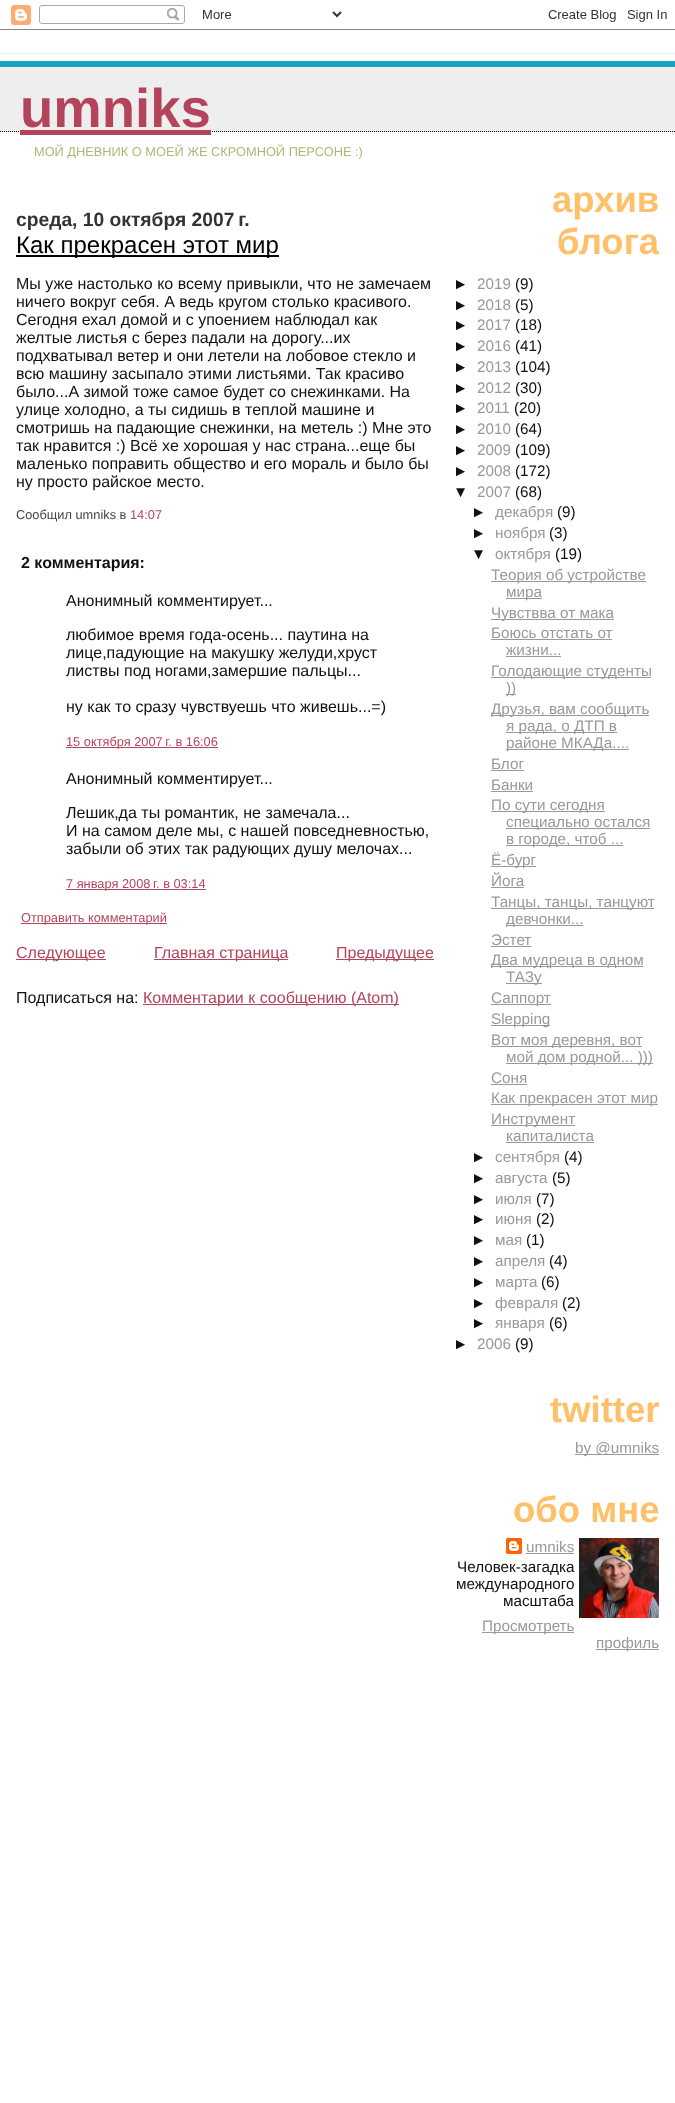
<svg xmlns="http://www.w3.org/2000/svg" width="675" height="2103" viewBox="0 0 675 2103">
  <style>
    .t1 { font: bold 54.5px Liberation Sans; fill: #b4445c; }
    .t2 { font: 12.8px Liberation Sans; fill: #acb877; }
    .t3 { font: bold 19.25px Liberation Sans; fill: #333; }
    .t4 { font: 24px Liberation Sans; fill: #000; }
    .t5 { font: 16px Liberation Sans; fill: #111; }
    .t6 { font: 12.8px Liberation Sans; fill: #444; }
    .t7 { font: 12.8px Liberation Sans; fill: #b4445c; }
    .t8 { font: bold 16px Liberation Sans; fill: #111; }
    .t9 { font: 16px Liberation Sans; fill: #b4445c; }
    .t10 { font: bold 36.5px Liberation Sans; fill: #ffc069; }
    .t11 { font: 15.25px Liberation Sans; fill: #111; }
    .t12 { font: 15.25px Liberation Sans; fill: #999; }
  </style>
  <defs>
    <clipPath id="clip1"><rect x="453" y="179" width="206" height="1505"/></clipPath>
  </defs>
  <rect width="100%" height="100%" fill="#fff"/>
  <image x="0" y="5" width="675" height="25" href="images/1.png"/>
  <rect x="0" y="53" width="675" height="1" fill="#eee"/>
  <rect x="0" y="67" width="675" height="65" fill="#eee"/>
  <rect x="0" y="61" width="675" height="6" fill="#16a3c2"/>
  <path d="M0 131.5H675" fill="none" stroke="#000" stroke-dasharray="1 1"/>
  <text x="20" y="127" class="t1">umniks</text>
  <rect x="20" y="130" width="191" height="5" fill="#b4445c"/>
  <text x="34" y="156" class="t2">МОЙ ДНЕВНИК О МОЕЙ ЖЕ СКРОМНОЙ ПЕРСОНЕ :)</text>
  <text x="16" y="226" class="t3">среда, 10 октября 2007 г.</text>
  <rect x="16" y="255" width="263" height="2" fill="#000"/>
  <text x="16" y="253" class="t4">Как прекрасен этот мир</text>
  <text x="16" y="289" class="t5">Мы уже настолько ко всему привыкли, что не замечаем</text>
  <text x="16" y="307" class="t5">ничего вокруг себя. А ведь кругом столько красивого.</text>
  <text x="16" y="325" class="t5">Сегодня ехал домой и с упоением наблюдал как</text>
  <text x="16" y="343" class="t5">желтые листья с берез падали на дорогу...их</text>
  <text x="16" y="361" class="t5">подхватывал ветер и они летели на лобовое стекло и</text>
  <text x="16" y="379" class="t5">всю машину засыпало этими листьями. Так красиво</text>
  <text x="16" y="397" class="t5">было...А зимой тоже самое будет со снежинками. На</text>
  <text x="16" y="415" class="t5">улице холодно, а ты сидишь в теплой машине и</text>
  <text x="16" y="433" class="t5">смотришь на падающие снежинки, на метель :) Мне это</text>
  <text x="16" y="451" class="t5">так нравится :) Всё хе хорошая у нас страна...еще бы</text>
  <text x="16" y="469" class="t5">маленько поправить общество и его мораль и было бы</text>
  <text x="16" y="487" class="t5">ну просто райское место.</text>
  <text x="16" y="519" class="t6">Сообщил umniks в</text>
  <text x="130" y="519" class="t7">14:07</text>
  <text x="21" y="568" class="t8">2 комментария:</text>
  <text x="66" y="606" class="t5">Анонимный комментирует...</text>
  <text x="66" y="640" class="t5">любимое время года-осень... паутина на</text>
  <text x="66" y="658" class="t5">лице,падующие на макушку желуди,хруст</text>
  <text x="66" y="676" class="t5">листвы под ногами,замершие пальцы...</text>
  <text x="66" y="712" class="t5">ну как то сразу чувствуешь что живешь...=)</text>
  <rect x="66" y="747" width="152" height="1" fill="#b4445c"/>
  <text x="66" y="746" class="t7">15 октября 2007 г. в 16:06</text>
  <text x="66" y="784" class="t5">Анонимный комментирует...</text>
  <text x="66" y="818" class="t5">Лешик,да ты романтик, не замечала...</text>
  <text x="66" y="836" class="t5">И на самом деле мы, с нашей повседневностью,</text>
  <text x="66" y="854" class="t5">забыли об этих так радующих душу мелочах...</text>
  <rect x="66" y="889" width="140" height="1" fill="#b4445c"/>
  <text x="66" y="888" class="t7">7 января 2008 г. в 03:14</text>
  <rect x="21" y="923" width="146" height="1" fill="#b4445c"/>
  <text x="21" y="922" class="t7">Отправить комментарий</text>
  <rect x="16" y="959" width="90" height="1" fill="#b4445c"/>
  <text x="16" y="958" class="t9">Следующее</text>
  <rect x="154" y="959" width="134" height="1" fill="#b4445c"/>
  <text x="154" y="958" class="t9">Главная страница</text>
  <rect x="336" y="959" width="98" height="1" fill="#b4445c"/>
  <text x="336" y="958" class="t9">Предыдущее</text>
  <text x="16" y="1003" class="t5">Подписаться на:</text>
  <rect x="143" y="1004" width="256" height="1" fill="#b4445c"/>
  <text x="143" y="1003" class="t9">Комментарии к сообщению (Atom)</text>
  <text x="552" y="212" class="t10">архив</text>
  <g clip-path="url(#clip1)">
    <text x="557" y="254" class="t10">блога</text>
  </g>
  <text x="453" y="289" class="t11">►</text>
  <text x="477" y="289" class="t12">2019</text>
  <text x="515" y="289" class="t11">(9)</text>
  <text x="453" y="310" class="t11">►</text>
  <text x="477" y="310" class="t12">2018</text>
  <text x="515" y="310" class="t11">(5)</text>
  <text x="453" y="330" class="t11">►</text>
  <text x="477" y="330" class="t12">2017</text>
  <text x="515" y="330" class="t11">(18)</text>
  <text x="453" y="351" class="t11">►</text>
  <text x="477" y="351" class="t12">2016</text>
  <text x="515" y="351" class="t11">(41)</text>
  <text x="453" y="372" class="t11">►</text>
  <text x="477" y="372" class="t12">2013</text>
  <text x="515" y="372" class="t11">(104)</text>
  <text x="453" y="393" class="t11">►</text>
  <text x="477" y="393" class="t12">2012</text>
  <text x="515" y="393" class="t11">(30)</text>
  <text x="453" y="413" class="t11">►</text>
  <text x="477" y="413" class="t12">2011</text>
  <text x="514" y="413" class="t11">(20)</text>
  <text x="453" y="434" class="t11">►</text>
  <text x="477" y="434" class="t12">2010</text>
  <text x="515" y="434" class="t11">(64)</text>
  <text x="453" y="455" class="t11">►</text>
  <text x="477" y="455" class="t12">2009</text>
  <text x="515" y="455" class="t11">(109)</text>
  <text x="453" y="476" class="t11">►</text>
  <text x="477" y="476" class="t12">2008</text>
  <text x="515" y="476" class="t11">(172)</text>
  <text x="453" y="497" class="t11">▼</text>
  <text x="477" y="497" class="t12">2007</text>
  <text x="515" y="497" class="t11">(68)</text>
  <text x="471" y="517" class="t11">►</text>
  <text x="495" y="517" class="t12">декабря</text>
  <text x="557" y="517" class="t11">(9)</text>
  <text x="471" y="538" class="t11">►</text>
  <text x="495" y="538" class="t12">ноября</text>
  <text x="549" y="538" class="t11">(3)</text>
  <text x="471" y="559" class="t11">▼</text>
  <text x="495" y="559" class="t12">октября</text>
  <text x="555" y="559" class="t11">(19)</text>
  <rect x="491" y="581" width="155" height="1" fill="#999"/>
  <text x="491" y="580" class="t12">Теория об устройстве</text>
  <rect x="506" y="598" width="36" height="1" fill="#999"/>
  <text x="506" y="597" class="t12">мира</text>
  <rect x="491" y="619" width="123" height="1" fill="#999"/>
  <text x="491" y="618" class="t12">Чувствва от мака</text>
  <text x="491" y="638" class="t12">Боюсь отстать от</text>
  <rect x="491" y="639" width="121" height="1" fill="#999"/>
  <text x="506" y="655" class="t12">жизни...</text>
  <rect x="506" y="656" width="55" height="1" fill="#999"/>
  <rect x="491" y="677" width="160" height="1" fill="#999"/>
  <text x="491" y="676" class="t12">Голодающие студенты</text>
  <rect x="506" y="694" width="10" height="1" fill="#999"/>
  <text x="506" y="693" class="t12">))</text>
  <rect x="491" y="715" width="158" height="1" fill="#999"/>
  <text x="491" y="714" class="t12">Друзья, вам сообщить</text>
  <rect x="506" y="732" width="111" height="1" fill="#999"/>
  <text x="506" y="731" class="t12">я рада, о ДТП в</text>
  <rect x="506" y="749" width="123" height="1" fill="#999"/>
  <text x="506" y="748" class="t12">районе МКАДа....</text>
  <text x="491" y="769" class="t12">Блог</text>
  <rect x="491" y="770" width="33" height="1" fill="#999"/>
  <text x="491" y="790" class="t12">Банки</text>
  <rect x="491" y="791" width="42" height="1" fill="#999"/>
  <rect x="491" y="811" width="114" height="1" fill="#999"/>
  <text x="491" y="810" class="t12">По сути сегодня</text>
  <rect x="506" y="828" width="144" height="1" fill="#999"/>
  <text x="506" y="827" class="t12">специально остался</text>
  <rect x="506" y="845" width="117" height="1" fill="#999"/>
  <text x="506" y="844" class="t12">в городе, чтоб ...</text>
  <rect x="491" y="866" width="45" height="1" fill="#999"/>
  <text x="491" y="865" class="t12">Ё-бург</text>
  <text x="491" y="886" class="t12">Йога</text>
  <rect x="491" y="887" width="33" height="1" fill="#999"/>
  <rect x="491" y="908" width="163" height="1" fill="#999"/>
  <text x="491" y="907" class="t12">Танцы, танцы, танцуют</text>
  <rect x="506" y="925" width="77" height="1" fill="#999"/>
  <text x="506" y="924" class="t12">девчонки...</text>
  <text x="491" y="945" class="t12">Эстет</text>
  <rect x="491" y="946" width="40" height="1" fill="#999"/>
  <rect x="491" y="966" width="152" height="1" fill="#999"/>
  <text x="491" y="965" class="t12">Два мудреца в одном</text>
  <rect x="506" y="983" width="36" height="1" fill="#999"/>
  <text x="506" y="982" class="t12">ТАЗу</text>
  <rect x="491" y="1004" width="60" height="1" fill="#999"/>
  <text x="491" y="1003" class="t12">Саппорт</text>
  <rect x="491" y="1025" width="59" height="1" fill="#999"/>
  <text x="491" y="1024" class="t12">Slepping</text>
  <rect x="491" y="1046" width="151" height="1" fill="#999"/>
  <text x="491" y="1045" class="t12">Вот моя деревня, вот</text>
  <rect x="506" y="1063" width="147" height="1" fill="#999"/>
  <text x="506" y="1062" class="t12">мой дом родной... )))</text>
  <text x="491" y="1083" class="t12">Соня</text>
  <rect x="491" y="1084" width="36" height="1" fill="#999"/>
  <rect x="491" y="1104" width="167" height="1" fill="#999"/>
  <text x="491" y="1103" class="t12">Как прекрасен этот мир</text>
  <rect x="491" y="1125" width="84" height="1" fill="#999"/>
  <text x="491" y="1124" class="t12">Инструмент</text>
  <text x="506" y="1141" class="t12">капиталиста</text>
  <rect x="506" y="1142" width="88" height="1" fill="#999"/>
  <text x="471" y="1162" class="t11">►</text>
  <text x="495" y="1162" class="t12">сентября</text>
  <text x="564" y="1162" class="t11">(4)</text>
  <text x="471" y="1183" class="t11">►</text>
  <text x="495" y="1183" class="t12">августа</text>
  <text x="552" y="1183" class="t11">(5)</text>
  <text x="471" y="1204" class="t11">►</text>
  <text x="495" y="1204" class="t12">июля</text>
  <text x="536" y="1204" class="t11">(7)</text>
  <text x="471" y="1224" class="t11">►</text>
  <text x="495" y="1224" class="t12">июня</text>
  <text x="536" y="1224" class="t11">(2)</text>
  <text x="471" y="1245" class="t11">►</text>
  <text x="495" y="1245" class="t12">мая</text>
  <text x="526" y="1245" class="t11">(1)</text>
  <text x="471" y="1266" class="t11">►</text>
  <text x="495" y="1266" class="t12">апреля</text>
  <text x="549" y="1266" class="t11">(4)</text>
  <text x="471" y="1287" class="t11">►</text>
  <text x="495" y="1287" class="t12">марта</text>
  <text x="541" y="1287" class="t11">(6)</text>
  <text x="471" y="1308" class="t11">►</text>
  <text x="495" y="1308" class="t12">февраля</text>
  <text x="562" y="1308" class="t11">(2)</text>
  <text x="471" y="1328" class="t11">►</text>
  <text x="495" y="1328" class="t12">января</text>
  <text x="549" y="1328" class="t11">(6)</text>
  <text x="453" y="1349" class="t11">►</text>
  <text x="477" y="1349" class="t12">2006</text>
  <text x="515" y="1349" class="t11">(9)</text>
  <text x="550" y="1422" class="t10">twitter</text>
  <rect x="575" y="1454" width="84" height="1" fill="#999"/>
  <text x="575" y="1453" class="t12">by @umniks</text>
  <text x="513" y="1522" class="t10">обо мне</text>
  <image x="506" y="1538" width="16" height="16" href="images/2.png"/>
  <text x="526" y="1552" class="t12">umniks</text>
  <rect x="526" y="1553" width="48" height="1" fill="#999"/>
  <text x="457" y="1572" class="t11">Человек-загадка</text>
  <text x="456" y="1589" class="t11">международного</text>
  <text x="503" y="1606" class="t11">масштаба</text>
  <image x="579" y="1538" width="80" height="80" href="images/3.png"/>
  <rect x="482" y="1632" width="92" height="1" fill="#999"/>
  <text x="482" y="1631" class="t12">Просмотреть</text>
  <rect x="596" y="1649" width="63" height="1" fill="#999"/>
  <text x="596" y="1648" class="t12">профиль</text>
</svg>
